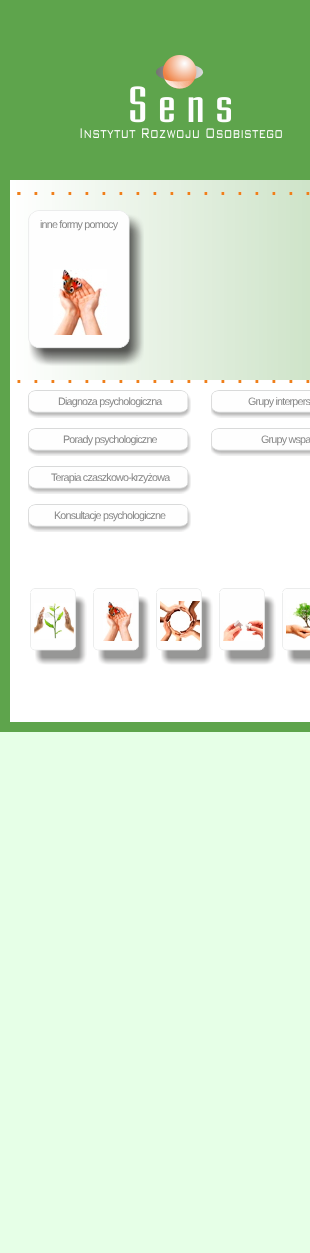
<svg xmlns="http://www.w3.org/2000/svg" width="310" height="1253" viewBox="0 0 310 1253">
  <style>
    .t1 { font: 10.75px Liberation Sans; letter-spacing: -0.8px; fill: #888; }
  </style>
  <rect width="100%" height="100%" fill="#e6ffe7"/>
  <rect x="0" y="0" width="310" height="732" fill="#5ea44c"/>
  <image x="80" y="55" width="202" height="83" href="images/1.png"/>
  <image x="10" y="180" width="300" height="200" href="images/2.png"/>
  <rect x="10" y="380" width="300" height="342" fill="#fff"/>
  <image x="17" y="380" width="293" height="3" href="images/3.png"/>
  <image x="28" y="210" width="116" height="156" href="images/4.png"/>
  <text x="40" y="228" class="t1">inne formy pomocy</text>
  <image x="53" y="269" width="54" height="66" href="images/5.png"/>
  <image x="28" y="390" width="163" height="28" href="images/6.png"/>
  <text x="58" y="405" class="t1">Diagnoza psychologiczna</text>
  <image x="28" y="428" width="163" height="28" href="images/6.png"/>
  <text x="63" y="443" class="t1">Porady psychologiczne</text>
  <image x="28" y="466" width="163" height="28" href="images/6.png"/>
  <text x="51" y="481" class="t1">Terapia czaszkowo-krzyżowa</text>
  <image x="28" y="504" width="163" height="28" href="images/6.png"/>
  <text x="54" y="519" class="t1">Konsultacje psychologiczne</text>
  <image x="211" y="390" width="99" height="28" href="images/7.png"/>
  <text x="248" y="405" class="t1">Grupy interpers</text>
  <image x="211" y="428" width="99" height="28" href="images/7.png"/>
  <text x="261" y="443" class="t1">Grupy wspa</text>
  <image x="30" y="588" width="57" height="77" href="images/8.png"/>
  <image x="34" y="603" width="40" height="36" href="images/9.png"/>
  <image x="93" y="588" width="57" height="77" href="images/8.png"/>
  <image x="103" y="601" width="30" height="40" href="images/10.png"/>
  <image x="156" y="588" width="57" height="77" href="images/8.png"/>
  <image x="160" y="601" width="40" height="40" href="images/11.png"/>
  <image x="219" y="588" width="57" height="77" href="images/8.png"/>
  <image x="223" y="620" width="40" height="21" href="images/12.png"/>
  <image x="282" y="588" width="28" height="77" href="images/13.png"/>
  <image x="286" y="600" width="24" height="39" href="images/14.png"/>
</svg>
